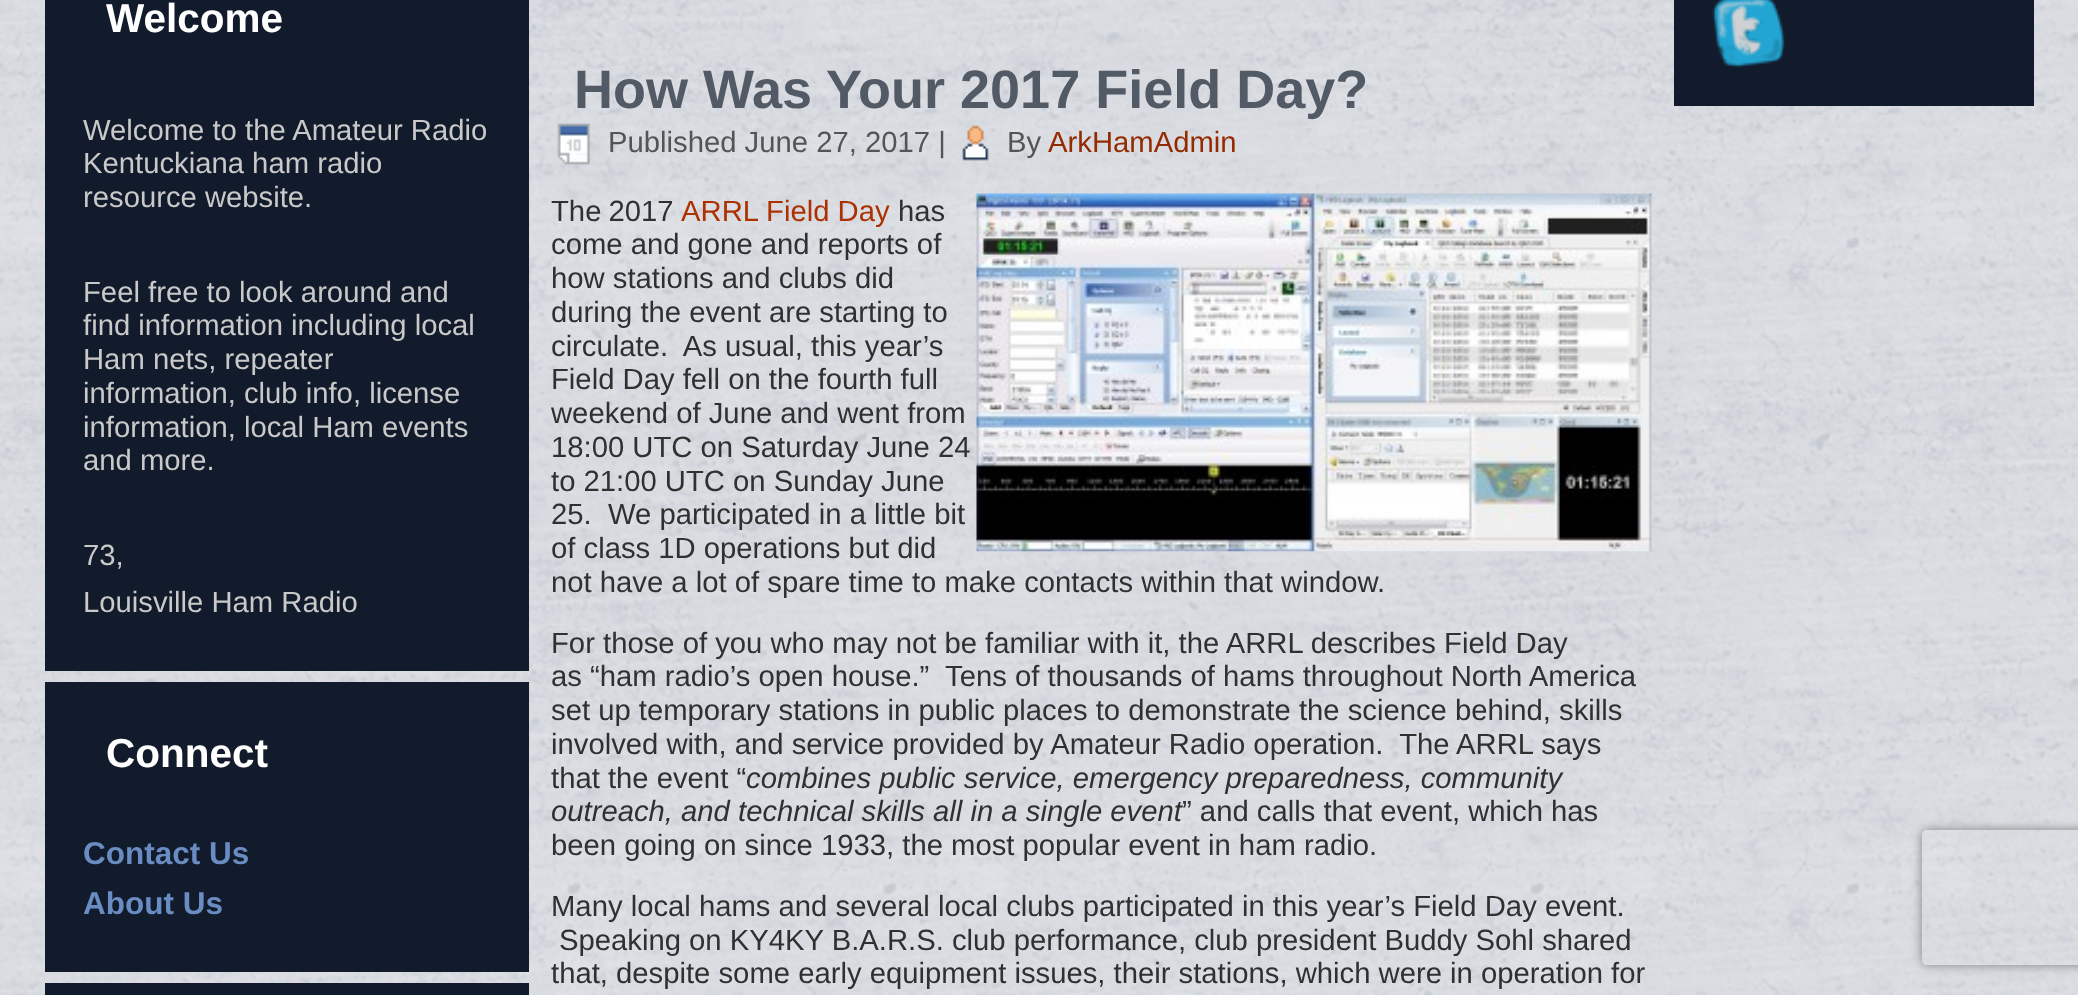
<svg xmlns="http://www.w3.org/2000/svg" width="2078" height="995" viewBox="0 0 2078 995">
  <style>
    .t1 { font: bold 40.5px Liberation Sans; fill: #fff; }
    .t2 { font: 29.25px Liberation Sans; fill: #c9c9c9; }
    .t3 { font: bold 31.5px Liberation Sans; fill: #698cc3; }
    .t4 { font: bold 54px Liberation Sans; fill: #525a66; }
    .t5 { font: 29.25px Liberation Sans; fill: #545454; }
    .t6 { font: 29.25px Liberation Sans; fill: #942a00; }
    .t7 { font: 29.25px Liberation Sans; fill: #303030; }
    .t8 { font: 29.25px Liberation Sans; fill: #ad3100; }
    .t9 { font: italic 29.25px Liberation Sans; fill: #303030; }
  </style>
  <defs>
    <clipPath id="clip1"><path d="M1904 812H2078V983H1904ZM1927 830H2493C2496 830 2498 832 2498 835V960C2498 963 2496 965 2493 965H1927C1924 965 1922 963 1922 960V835C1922 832 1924 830 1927 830Z" clip-rule="evenodd"/></clipPath>
  </defs>
  <rect width="100%" height="100%" fill="#dadde2"/>
  <image x="0" y="0" width="2078" height="995" href="images/1.png"/>
  <rect x="45" y="0" width="484" height="671" fill="#121b2b"/>
  <text x="106" y="32" class="t1">Welcome</text>
  <text x="83" y="140" class="t2">Welcome to the Amateur Radio</text>
  <text x="83" y="173" class="t2">Kentuckiana ham radio</text>
  <text x="83" y="207" class="t2">resource website.</text>
  <text x="83" y="302" class="t2">Feel free to look around and</text>
  <text x="83" y="335" class="t2">find information including local</text>
  <text x="83" y="369" class="t2">Ham nets, repeater</text>
  <text x="83" y="403" class="t2">information, club info, license</text>
  <text x="83" y="437" class="t2">information, local Ham events</text>
  <text x="83" y="470" class="t2">and more.</text>
  <text x="83" y="565" class="t2">73,</text>
  <text x="83" y="612" class="t2">Louisville Ham Radio</text>
  <rect x="45" y="682" width="484" height="290" fill="#121b2b"/>
  <text x="106" y="767" class="t1">Connect</text>
  <text x="83" y="864" class="t3">Contact Us</text>
  <text x="83" y="914" class="t3">About Us</text>
  <rect x="45" y="983" width="484" height="12" fill="#121b2b"/>
  <text x="574" y="108" class="t4">How Was Your 2017 Field Day?</text>
  <image x="557" y="123" width="33" height="42" href="images/2.png"/>
  <text x="608" y="152" class="t5">Published June 27, 2017 |</text>
  <image x="962" y="125" width="27" height="36" href="images/3.png"/>
  <text x="1007" y="152" class="t5">By</text>
  <text x="1048" y="152" class="t6">ArkHamAdmin</text>
  <text x="551" y="221" word-spacing="-1" class="t7">The 2017</text>
  <text x="681" y="221" class="t8">ARRL Field Day</text>
  <text x="898" y="221" class="t7">has</text>
  <image x="976" y="193" width="676" height="359" href="images/4.png"/>
  <text x="551" y="254" class="t7">come and gone and reports of</text>
  <text x="551" y="288" class="t7">how stations and clubs did</text>
  <text x="551" y="322" class="t7">during the event are starting to</text>
  <text x="551" y="356" class="t7" xml:space="preserve">circulate.  As usual, this year’s</text>
  <text x="551" y="389" class="t7">Field Day fell on the fourth full</text>
  <text x="551" y="423" class="t7">weekend of June and went from</text>
  <text x="551" y="457" class="t7">18:00 UTC on Saturday June 24</text>
  <text x="551" y="491" class="t7">to 21:00 UTC on Sunday June</text>
  <text x="551" y="524" class="t7" xml:space="preserve">25.  We participated in a little bit</text>
  <text x="551" y="558" class="t7">of class 1D operations but did</text>
  <text x="551" y="592" class="t7">not have a lot of spare time to make contacts within that window.</text>
  <text x="551" y="653" class="t7">For those of you who may not be familiar with it, the ARRL describes Field Day</text>
  <text x="551" y="686" class="t7" xml:space="preserve">as “ham radio’s open house.”  Tens of thousands of hams throughout North America</text>
  <text x="551" y="720" class="t7">set up temporary stations in public places to demonstrate the science behind, skills</text>
  <text x="551" y="754" class="t7" xml:space="preserve">involved with, and service provided by Amateur Radio operation.  The ARRL says</text>
  <text x="551" y="788" class="t7">that the event “</text>
  <text x="746" y="788" class="t9">combines public service, emergency preparedness, community</text>
  <text x="551" y="821" class="t9">outreach, and technical skills all in a single event</text>
  <text x="1182" y="821" class="t7">” and calls that event, which has</text>
  <text x="551" y="855" class="t7">been going on since 1933, the most popular event in ham radio.</text>
  <text x="551" y="916" class="t7">Many local hams and several local clubs participated in this year’s Field Day event.</text>
  <text x="559" y="950" class="t7">Speaking on KY4KY B.A.R.S. club performance, club president Buddy Sohl shared</text>
  <text x="551" y="983" class="t7">that, despite some early equipment issues, their stations, which were in operation for</text>
  <rect x="1674" y="0" width="360" height="106" fill="#121b2b"/>
  <image x="1712" y="0" width="73" height="68" href="images/5.png"/>
  <g clip-path="url(#clip1)">
    <rect x="1922" y="830" width="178" height="135" rx="5" fill="#808080" filter="blur(5.5px)"/>
  </g>
</svg>
